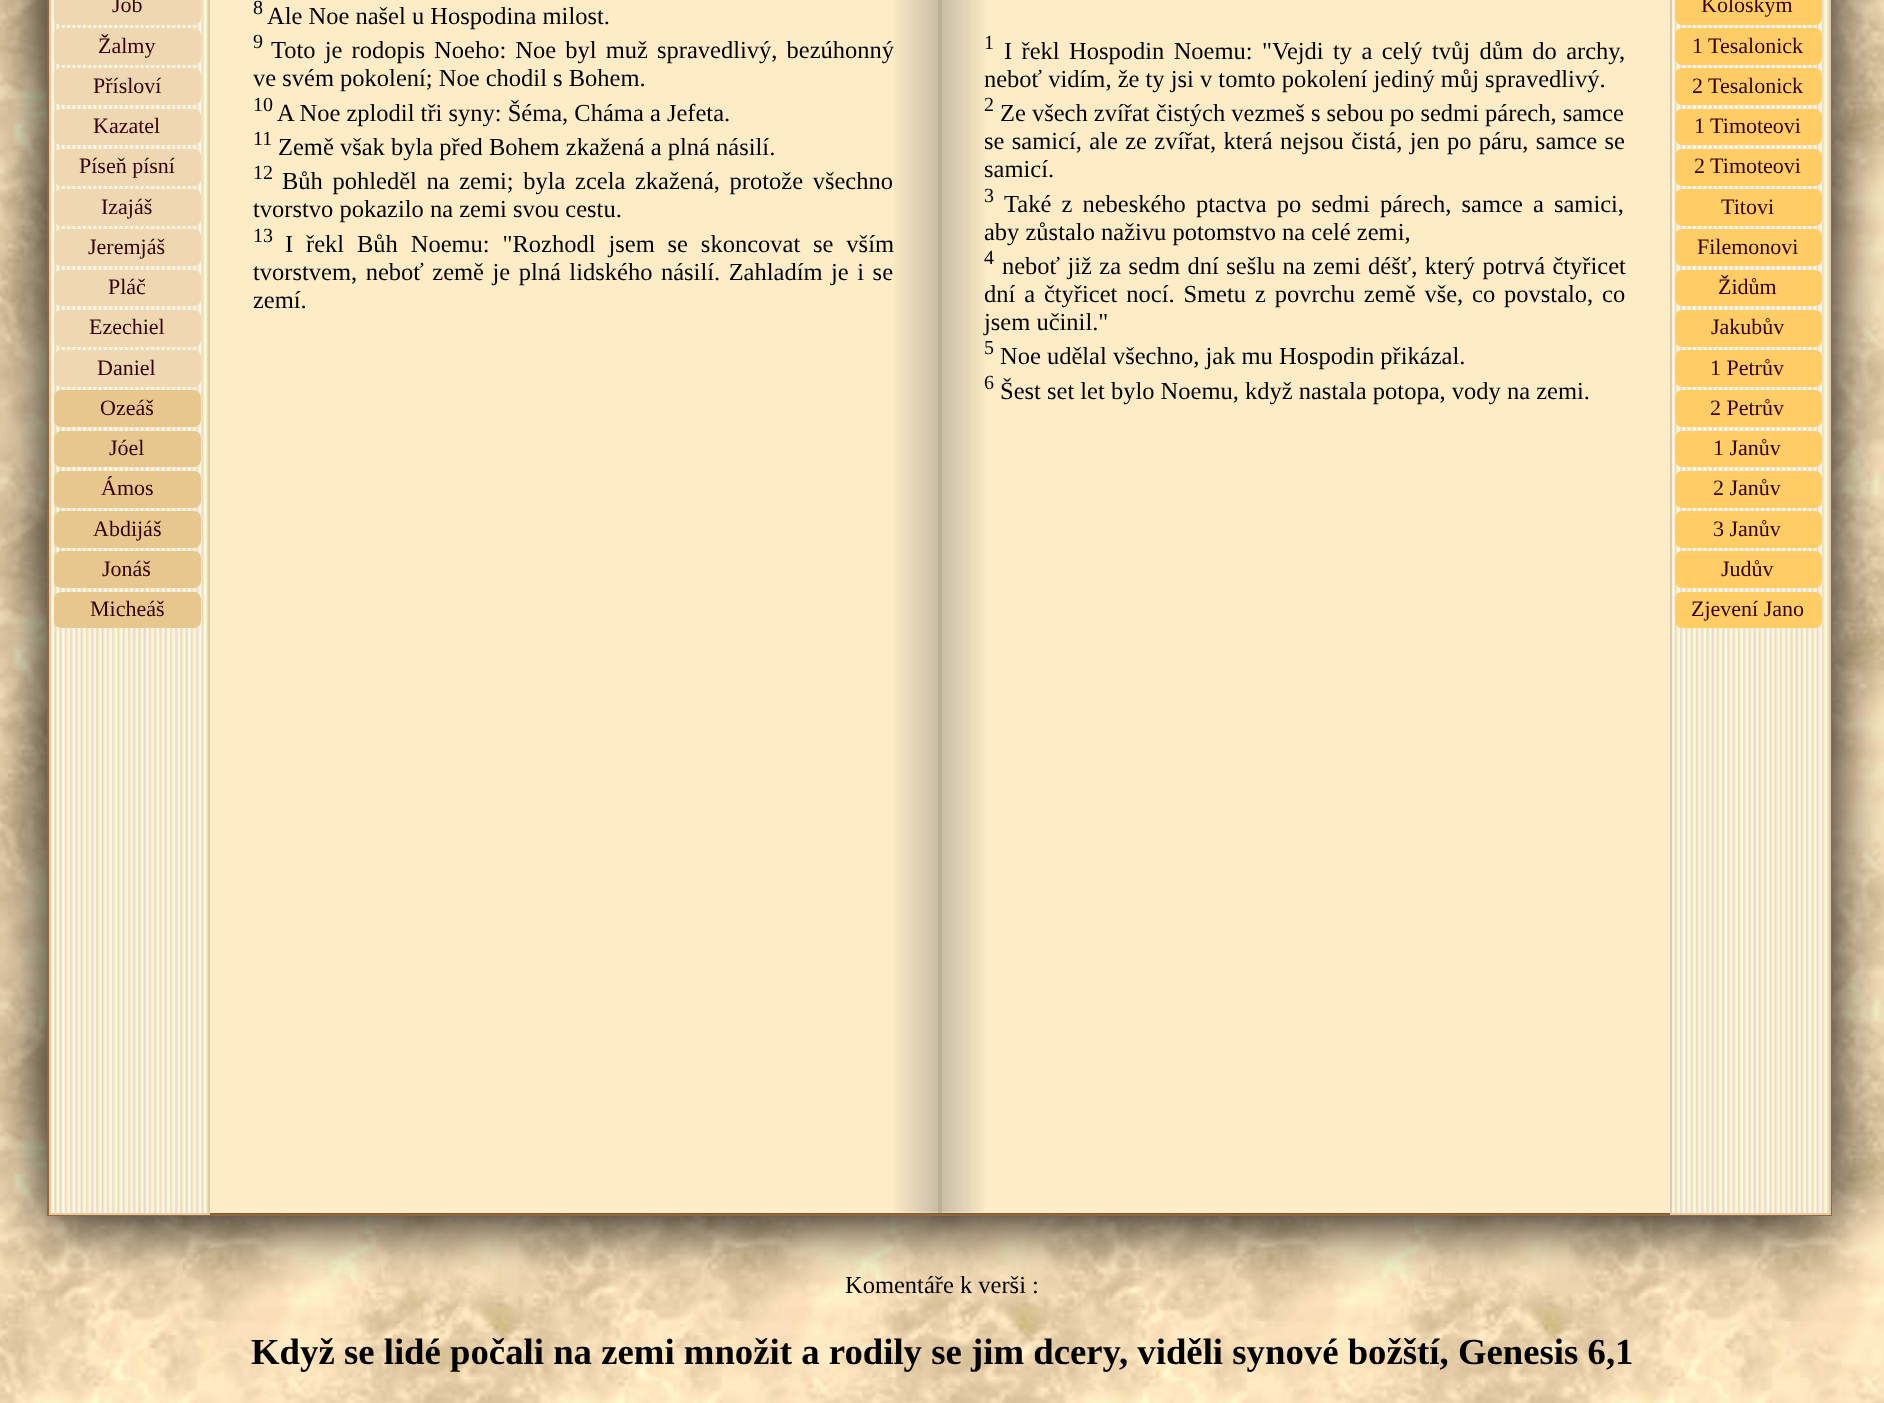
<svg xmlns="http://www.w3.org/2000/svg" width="1884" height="1403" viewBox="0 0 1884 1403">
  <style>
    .t1 { font: 22px Liberation Serif; fill: #300; }
    .t2 { font: 20px Liberation Serif; fill: #000; }
    .t3 { font: 24.5px Liberation Serif; fill: #000; }
    .t4 { font: bold 36.75px Liberation Serif; fill: #000; }
  </style>
  <rect width="100%" height="100%" fill="#fff"/>
  <image x="0" y="0" width="1884" height="1403" href="images/1.png"/>
  <rect x="46" y="-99" width="1785" height="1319" fill="#000" filter="blur(33px)"/>
  <rect x="48" y="-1" width="1783" height="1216" fill="none" stroke="#963" stroke-width="2"/>
  <image x="51" y="0" width="157" height="1213" href="images/2.png"/>
  <rect x="50" y="-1" width="159" height="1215" fill="none" stroke="#e3c8ac" stroke-width="2"/>
  <rect x="55" y="-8" width="145" height="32" rx="6" fill="#efd7b1" stroke="#efd7b1" stroke-width="2"/>
  <text x="112" y="12" class="t1">Jób</text>
  <rect x="55" y="29" width="145" height="35" rx="6" fill="#efd7b1" stroke="#efd7b1" stroke-width="2"/>
  <text x="98" y="53" class="t1">Žalmy</text>
  <rect x="55" y="69" width="145" height="35" rx="6" fill="#efd7b1" stroke="#efd7b1" stroke-width="2"/>
  <text x="93" y="93" class="t1">Přísloví</text>
  <rect x="55" y="110" width="145" height="34" rx="6" fill="#efd7b1" stroke="#efd7b1" stroke-width="2"/>
  <text x="93" y="133" class="t1">Kazatel</text>
  <rect x="55" y="150" width="145" height="35" rx="6" fill="#efd7b1" stroke="#efd7b1" stroke-width="2"/>
  <text x="79" y="173" class="t1">Píseň písní</text>
  <rect x="55" y="190" width="145" height="35" rx="6" fill="#efd7b1" stroke="#efd7b1" stroke-width="2"/>
  <text x="101" y="214" class="t1">Izajáš</text>
  <rect x="55" y="230" width="145" height="35" rx="6" fill="#efd7b1" stroke="#efd7b1" stroke-width="2"/>
  <text x="88" y="254" class="t1">Jeremjáš</text>
  <rect x="55" y="271" width="145" height="34" rx="6" fill="#efd7b1" stroke="#efd7b1" stroke-width="2"/>
  <text x="108" y="294" class="t1">Pláč</text>
  <rect x="55" y="311" width="145" height="35" rx="6" fill="#efd7b1" stroke="#efd7b1" stroke-width="2"/>
  <text x="89" y="334" class="t1">Ezechiel</text>
  <rect x="55" y="351" width="145" height="35" rx="6" fill="#efd7b1" stroke="#efd7b1" stroke-width="2"/>
  <text x="97" y="375" class="t1">Daniel</text>
  <rect x="55" y="391" width="145" height="35" rx="6" fill="#e8c78e" stroke="#e8c78e" stroke-width="2"/>
  <text x="100" y="415" class="t1">Ozeáš</text>
  <rect x="55" y="432" width="145" height="34" rx="6" fill="#e8c78e" stroke="#e8c78e" stroke-width="2"/>
  <text x="109" y="455" class="t1">Jóel</text>
  <rect x="55" y="472" width="145" height="35" rx="6" fill="#e8c78e" stroke="#e8c78e" stroke-width="2"/>
  <text x="101" y="495" class="t1">Ámos</text>
  <rect x="55" y="512" width="145" height="35" rx="6" fill="#e8c78e" stroke="#e8c78e" stroke-width="2"/>
  <text x="93" y="536" class="t1">Abdijáš</text>
  <rect x="55" y="552" width="145" height="35" rx="6" fill="#e8c78e" stroke="#e8c78e" stroke-width="2"/>
  <text x="102" y="576" class="t1">Jonáš</text>
  <rect x="55" y="593" width="145" height="34" rx="6" fill="#e8c78e" stroke="#e8c78e" stroke-width="2"/>
  <text x="90" y="616" class="t1">Micheáš</text>
  <rect x="210" y="0" width="728" height="1213" fill="#fdecc6"/>
  <image x="894" y="0" width="44" height="1213" href="images/3.png"/>
  <text x="253" y="14" class="t2">8</text>
  <text x="267" y="24" class="t3">Ale Noe našel u Hospodina milost.</text>
  <text x="253" y="48" class="t2">9</text>
  <text x="271" y="58" word-spacing="3" class="t3">Toto je rodopis Noeho: Noe byl muž spravedlivý, bezúhonný</text>
  <text x="253" y="86" class="t3">ve svém pokolení; Noe chodil s Bohem.</text>
  <text x="253" y="111" class="t2">10</text>
  <text x="277" y="121" class="t3">A Noe zplodil tři syny: Šéma, Cháma a Jefeta.</text>
  <text x="253" y="145" class="t2">11</text>
  <text x="278" y="155" class="t3">Země však byla před Bohem zkažená a plná násilí.</text>
  <text x="253" y="179" class="t2">12</text>
  <text x="282" y="189" word-spacing="3.5" class="t3">Bůh pohleděl na zemi; byla zcela zkažená, protože všechno</text>
  <text x="253" y="217" class="t3">tvorstvo pokazilo na zemi svou cestu.</text>
  <text x="253" y="242" class="t2">13</text>
  <text x="285" y="252" word-spacing="6.75" class="t3">I řekl Bůh Noemu: "Rozhodl jsem se skoncovat se vším</text>
  <text x="253" y="280" word-spacing="2.4" class="t3">tvorstvem, neboť země je plná lidského násilí. Zahladím je i se</text>
  <text x="253" y="308" class="t3">zemí.</text>
  <rect x="942" y="0" width="728" height="1213" fill="#fdecc6"/>
  <image x="942" y="0" width="43" height="1213" href="images/4.png"/>
  <rect x="938" y="0" width="4" height="1213" fill="#bfb095"/>
  <text x="984" y="49" class="t2">1</text>
  <text x="1004" y="59" word-spacing="3.25" class="t3">I řekl Hospodin Noemu: "Vejdi ty a celý tvůj dům do archy,</text>
  <text x="984" y="87" class="t3">neboť vidím, že ty jsi v tomto pokolení jediný můj spravedlivý.</text>
  <text x="984" y="111" class="t2">2</text>
  <text x="1000" y="121" class="t3">Ze všech zvířat čistých vezmeš s sebou po sedmi párech, samce</text>
  <text x="984" y="149" word-spacing="1.25" class="t3">se samicí, ale ze zvířat, která nejsou čistá, jen po páru, samce se</text>
  <text x="984" y="177" class="t3">samicí.</text>
  <text x="984" y="202" class="t2">3</text>
  <text x="1004" y="212" word-spacing="4" class="t3">Také z nebeského ptactva po sedmi párech, samce a samici,</text>
  <text x="984" y="240" class="t3">aby zůstalo naživu potomstvo na celé zemi,</text>
  <text x="984" y="264" class="t2">4</text>
  <text x="1002" y="274" word-spacing="1.25" class="t3">neboť již za sedm dní sešlu na zemi déšť, který potrvá čtyřicet</text>
  <text x="984" y="302" word-spacing="2.75" class="t3">dní a čtyřicet nocí. Smetu z povrchu země vše, co povstalo, co</text>
  <text x="984" y="330" class="t3">jsem učinil."</text>
  <text x="984" y="354" class="t2">5</text>
  <text x="1000" y="364" class="t3">Noe udělal všechno, jak mu Hospodin přikázal.</text>
  <text x="984" y="389" class="t2">6</text>
  <text x="1000" y="399" class="t3">Šest set let bylo Noemu, když nastala potopa, vody na zemi.</text>
  <image x="1672" y="0" width="157" height="1213" href="images/5.png"/>
  <rect x="1671" y="-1" width="159" height="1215" fill="none" stroke="#e3c8ac" stroke-width="2"/>
  <rect x="1676" y="-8" width="145" height="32" rx="6" fill="#fc6" stroke="#fc6" stroke-width="2"/>
  <text x="1701" y="12" class="t1">Koloským</text>
  <rect x="1676" y="29" width="145" height="35" rx="6" fill="#fc6" stroke="#fc6" stroke-width="2"/>
  <text x="1692" y="53" class="t1">1 Tesalonick</text>
  <rect x="1676" y="69" width="145" height="35" rx="6" fill="#fc6" stroke="#fc6" stroke-width="2"/>
  <text x="1692" y="93" class="t1">2 Tesalonick</text>
  <rect x="1676" y="110" width="145" height="34" rx="6" fill="#fc6" stroke="#fc6" stroke-width="2"/>
  <text x="1694" y="133" class="t1">1 Timoteovi</text>
  <rect x="1676" y="150" width="145" height="35" rx="6" fill="#fc6" stroke="#fc6" stroke-width="2"/>
  <text x="1694" y="173" class="t1">2 Timoteovi</text>
  <rect x="1676" y="190" width="145" height="35" rx="6" fill="#fc6" stroke="#fc6" stroke-width="2"/>
  <text x="1721" y="214" class="t1">Titovi</text>
  <rect x="1676" y="230" width="145" height="35" rx="6" fill="#fc6" stroke="#fc6" stroke-width="2"/>
  <text x="1697" y="254" class="t1">Filemonovi</text>
  <rect x="1676" y="271" width="145" height="34" rx="6" fill="#fc6" stroke="#fc6" stroke-width="2"/>
  <text x="1718" y="294" class="t1">Židům</text>
  <rect x="1676" y="311" width="145" height="35" rx="6" fill="#fc6" stroke="#fc6" stroke-width="2"/>
  <text x="1711" y="334" class="t1">Jakubův</text>
  <rect x="1676" y="351" width="145" height="35" rx="6" fill="#fc6" stroke="#fc6" stroke-width="2"/>
  <text x="1710" y="375" class="t1">1 Petrův</text>
  <rect x="1676" y="391" width="145" height="35" rx="6" fill="#fc6" stroke="#fc6" stroke-width="2"/>
  <text x="1710" y="415" class="t1">2 Petrův</text>
  <rect x="1676" y="432" width="145" height="34" rx="6" fill="#fc6" stroke="#fc6" stroke-width="2"/>
  <text x="1713" y="455" class="t1">1 Janův</text>
  <rect x="1676" y="472" width="145" height="35" rx="6" fill="#fc6" stroke="#fc6" stroke-width="2"/>
  <text x="1713" y="495" class="t1">2 Janův</text>
  <rect x="1676" y="512" width="145" height="35" rx="6" fill="#fc6" stroke="#fc6" stroke-width="2"/>
  <text x="1713" y="536" class="t1">3 Janův</text>
  <rect x="1676" y="552" width="145" height="35" rx="6" fill="#fc6" stroke="#fc6" stroke-width="2"/>
  <text x="1721" y="576" class="t1">Judův</text>
  <rect x="1676" y="593" width="145" height="34" rx="6" fill="#fc6" stroke="#fc6" stroke-width="2"/>
  <text x="1691" y="616" class="t1">Zjevení Jano</text>
  <text x="845" y="1293" class="t3">Komentáře k verši :</text>
  <text x="251" y="1364" class="t4">Když se lidé počali na zemi množit a rodily se jim dcery, viděli synové božští, Genesis 6,1</text>
</svg>
